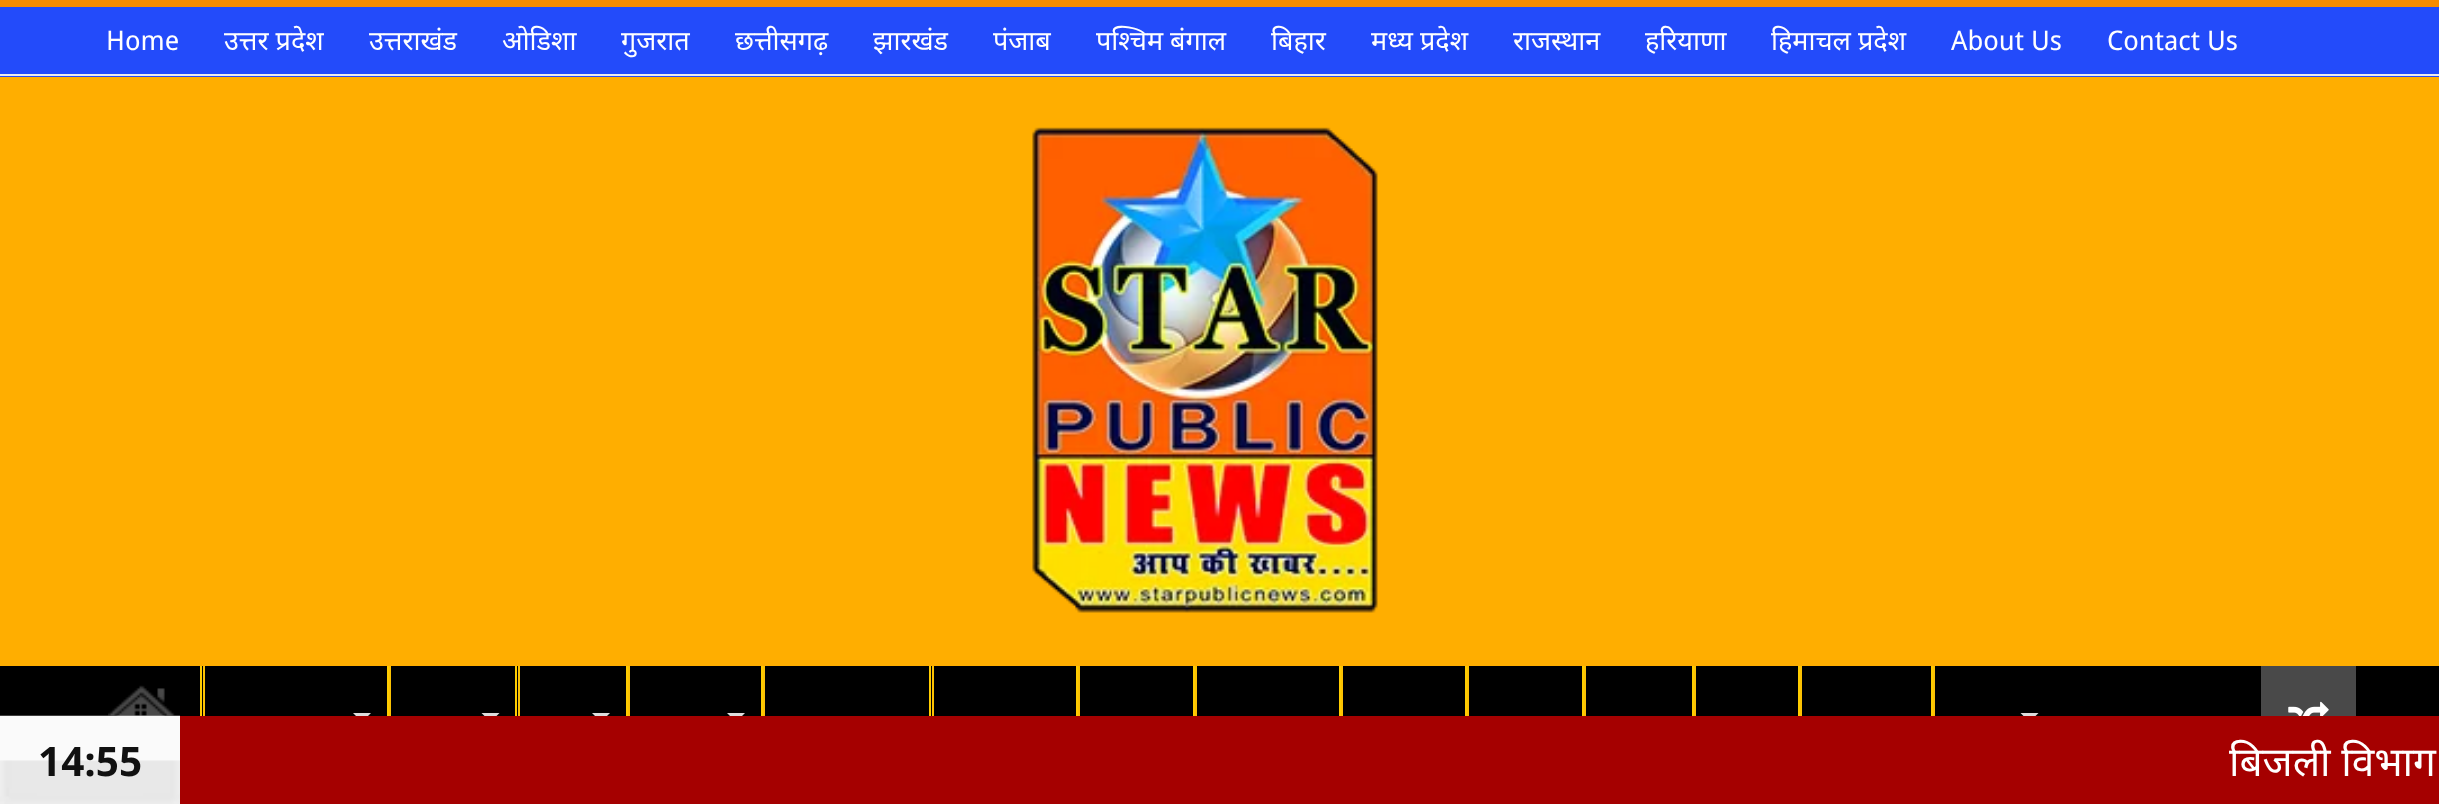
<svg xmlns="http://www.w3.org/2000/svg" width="2439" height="804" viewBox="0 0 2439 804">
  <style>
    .t1 { font: 27px Droid Sans; fill: #fff; }
    .t2 { font: 27px Noto Sans; fill: #fff; }
    .t3 { font: bold 40.5px Open Sans; fill: #111; }
    .t4 { font: 40.5px Noto Sans; fill: #fff; }
  </style>
  <rect width="100%" height="100%" fill="#ffae00"/>
  <rect x="0" y="0" width="2439" height="7" fill="#f88c00"/>
  <rect x="0" y="7" width="2439" height="70" fill="#234bfa"/>
  <rect x="0" y="74" width="2439" height="2" fill="#ececec"/>
  <text x="106" y="50" class="t1">Home</text>
  <text x="224" y="50" class="t2">उत्तर प्रदेश</text>
  <text x="369" y="50" class="t2">उत्तराखंड</text>
  <text x="502" y="50" class="t2">ओडिशा</text>
  <text x="621" y="50" class="t2">गुजरात</text>
  <text x="735" y="50" class="t2">छत्तीसगढ़</text>
  <text x="873" y="50" class="t2">झारखंड</text>
  <text x="993" y="50" class="t2">पंजाब</text>
  <text x="1096" y="50" class="t2">पश्चिम बंगाल</text>
  <text x="1271" y="50" class="t2">बिहार</text>
  <text x="1371" y="50" class="t2">मध्य प्रदेश</text>
  <text x="1513" y="50" class="t2">राजस्थान</text>
  <text x="1645" y="50" class="t2">हरियाणा</text>
  <text x="1771" y="50" class="t2">हिमाचल प्रदेश</text>
  <text x="1951" y="50" class="t1">About Us</text>
  <text x="2107" y="50" class="t1">Contact Us</text>
  <image x="1032" y="127" width="346" height="486" href="images/1.png"/>
  <rect x="0" y="666" width="2439" height="50" fill="#000"/>
  <image x="108" y="685" width="67" height="31" href="images/2.png"/>
  <rect x="200" y="666" width="2" height="50" fill="#fc0"/>
  <rect x="203" y="666" width="2" height="50" fill="#fcc203"/>
  <path d="M353 713H371L362 722Z" fill="#ddd"/>
  <rect x="387" y="666" width="2" height="50" fill="#fc0"/>
  <rect x="389" y="666" width="2" height="50" fill="#fcc203"/>
  <path d="M481.5 713H499.5L490.5 722Z" fill="#ddd"/>
  <rect x="515" y="666" width="2" height="50" fill="#fc0"/>
  <rect x="518" y="666" width="2" height="50" fill="#fcc203"/>
  <path d="M592 713H610L601 722Z" fill="#ddd"/>
  <rect x="626" y="666" width="2" height="50" fill="#fc0"/>
  <rect x="628" y="666" width="2" height="50" fill="#fcc203"/>
  <path d="M727 713H745L736 722Z" fill="#ddd"/>
  <rect x="761" y="666" width="2" height="50" fill="#fc0"/>
  <rect x="763" y="666" width="2" height="50" fill="#fcc203"/>
  <rect x="929" y="666" width="2" height="50" fill="#fc0"/>
  <rect x="932" y="666" width="2" height="50" fill="#fcc203"/>
  <rect x="1076" y="666" width="2" height="50" fill="#fc0"/>
  <rect x="1078" y="666" width="2" height="50" fill="#fcc203"/>
  <rect x="1193" y="666" width="2" height="50" fill="#fc0"/>
  <rect x="1195" y="666" width="2" height="50" fill="#fcc203"/>
  <rect x="1339" y="666" width="2" height="50" fill="#fc0"/>
  <rect x="1341" y="666" width="2" height="50" fill="#fcc203"/>
  <rect x="1465" y="666" width="2" height="50" fill="#fc0"/>
  <rect x="1467" y="666" width="2" height="50" fill="#fcc203"/>
  <rect x="1582" y="666" width="2" height="50" fill="#fc0"/>
  <rect x="1584" y="666" width="2" height="50" fill="#fcc203"/>
  <rect x="1692" y="666" width="2" height="50" fill="#fc0"/>
  <rect x="1694" y="666" width="2" height="50" fill="#fcc203"/>
  <rect x="1798" y="666" width="2" height="50" fill="#fc0"/>
  <rect x="1800" y="666" width="2" height="50" fill="#fcc203"/>
  <rect x="1931" y="666" width="2" height="50" fill="#fc0"/>
  <rect x="1933" y="666" width="2" height="50" fill="#fcc203"/>
  <path d="M2020.5 713H2038.5L2029.5 722Z" fill="#ddd"/>
  <rect x="2261" y="666" width="95" height="50" fill="#494949"/>
  <image x="2288" y="701" width="41" height="15" href="images/3.png"/>
  <image x="0" y="715" width="180" height="89" href="images/4.png"/>
  <text x="38" y="776" class="t3">14:55</text>
  <rect x="180" y="716" width="2259" height="88" fill="#a50000"/>
  <text x="2229" y="776" class="t4">बिजली विभाग</text>
</svg>
